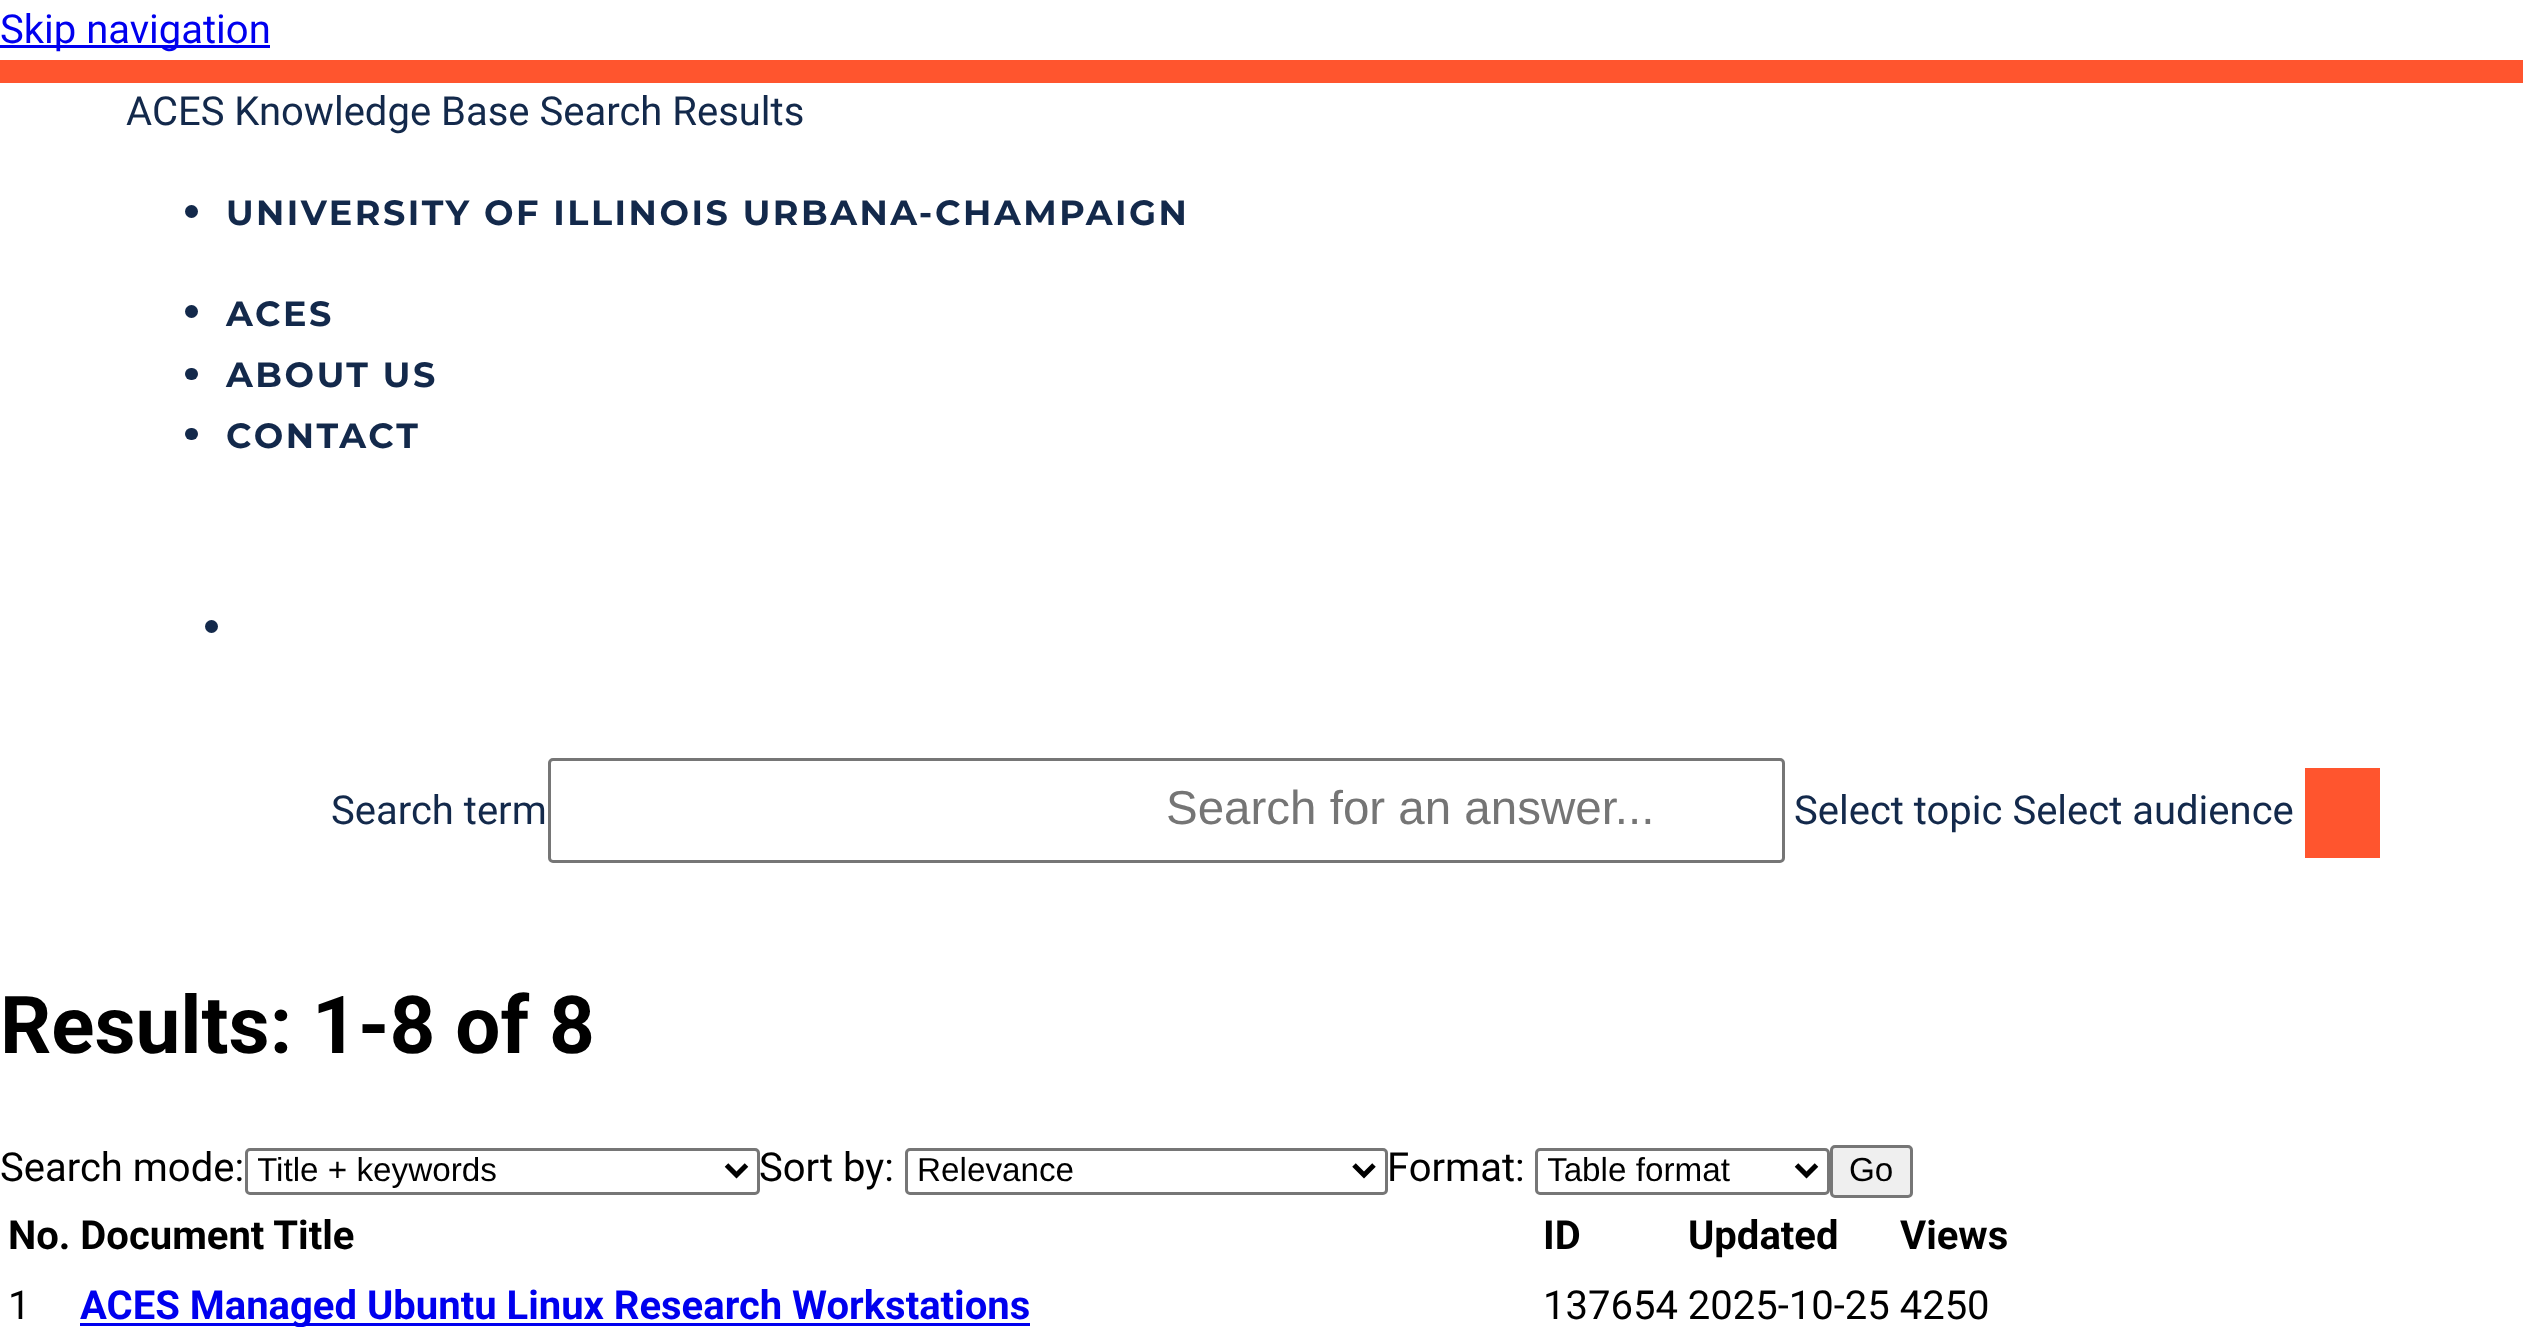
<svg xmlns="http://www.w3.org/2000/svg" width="2523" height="1327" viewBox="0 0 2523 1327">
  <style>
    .t1 { font: 40px Roboto; fill: #00e; }
    .t2 { font: 40px Roboto; fill: #13294b; }
    .t3 { font: bold 35px Montserrat; letter-spacing: 2.5px; fill: #13294b; }
    .t4 { font: 47.5px Liberation Sans; fill: #757575; }
    .t5 { font: bold 80px Roboto; fill: #000; }
    .t6 { font: 40px Roboto; fill: #000; }
    .t7 { font: 33.25px Liberation Sans; fill: #000; }
    .t8 { font: bold 40px Roboto; fill: #000; }
    .t9 { font: bold 40px Roboto; fill: #00e; }
  </style>
  <defs>
    <clipPath id="clip1"><rect x="258" y="1150" width="460" height="43"/></clipPath>
    <clipPath id="clip2"><rect x="1548" y="1150" width="240" height="43"/></clipPath>
  </defs>
  <rect width="100%" height="100%" fill="#fff"/>
  <rect x="0" y="45" width="270" height="3" fill="#00e"/>
  <text x="0" y="43" class="t1">Skip navigation</text>
  <rect x="0" y="60" width="2523" height="23" fill="#ff552e"/>
  <text x="126" y="125" class="t2">ACES Knowledge Base Search Results</text>
  <circle cx="191.5" cy="211.5" r="6.5" fill="#13294b"/>
  <text x="226" y="225" class="t3">UNIVERSITY OF ILLINOIS URBANA‐CHAMPAIGN</text>
  <circle cx="191.5" cy="311.5" r="6.5" fill="#13294b"/>
  <text x="226" y="326" class="t3">ACES</text>
  <rect x="185" y="368" width="13" height="12" rx="6" fill="#13294b"/>
  <text x="226" y="387" class="t3">ABOUT US</text>
  <rect x="185" y="428" width="13" height="12" rx="6" fill="#13294b"/>
  <text x="226" y="448" class="t3">CONTACT</text>
  <circle cx="211.5" cy="626.5" r="6.5" fill="#13294b"/>
  <text x="331" y="824" class="t2">Search term</text>
  <rect x="549.5" y="759.5" width="1234" height="102" rx="3.5" fill="none" stroke="#767676" stroke-width="3"/>
  <text x="1166" y="824" class="t4">Search for an answer...</text>
  <text x="1794" y="824" class="t2">Select topic Select audience</text>
  <rect x="2305" y="768" width="75" height="90" fill="#ff552e"/>
  <text x="0" y="1053" class="t5">Results: 1-8 of 8</text>
  <text x="0" y="1181" class="t6">Search mode:</text>
  <rect x="246.5" y="1149.5" width="512" height="44" rx="3.5" fill="none" stroke="#767676" stroke-width="3"/>
  <path d="M726.5 1165L736.5 1175L746.5 1165" fill="none" stroke="#000" stroke-width="5"/>
  <g clip-path="url(#clip1)">
    <text x="257" y="1181" class="t7">Title + keywords</text>
  </g>
  <text x="759" y="1181" class="t6">Sort by:</text>
  <rect x="906.5" y="1149.5" width="480" height="44" rx="3.5" fill="none" stroke="#767676" stroke-width="3"/>
  <path d="M1354 1165L1364 1175L1374 1165" fill="none" stroke="#000" stroke-width="5"/>
  <text x="917" y="1181" class="t7">Relevance</text>
  <text x="1387" y="1181" class="t6">Format:</text>
  <rect x="1536.5" y="1149.5" width="292" height="44" rx="3.5" fill="none" stroke="#767676" stroke-width="3"/>
  <path d="M1796.5 1165L1806.5 1175L1816.5 1165" fill="none" stroke="#000" stroke-width="5"/>
  <g clip-path="url(#clip2)">
    <text x="1547" y="1181" class="t7">Table format</text>
  </g>
  <rect x="1831.5" y="1146.5" width="80" height="50" rx="3.5" fill="#efefef" stroke="#767676" stroke-width="3"/>
  <text x="1849" y="1181" class="t7">Go</text>
  <text x="8" y="1249" class="t8">No. Document Title</text>
  <text x="1543" y="1249" class="t8">ID</text>
  <text x="1688" y="1249" class="t8">Updated</text>
  <text x="1900" y="1249" class="t8">Views</text>
  <text x="8" y="1319" class="t6">1</text>
  <rect x="80" y="1323" width="950" height="3" fill="#00e"/>
  <text x="80" y="1319" class="t9">ACES Managed Ubuntu Linux Research Workstations</text>
  <text x="1543" y="1319" class="t6">137654 2025-10-25 4250</text>
</svg>
